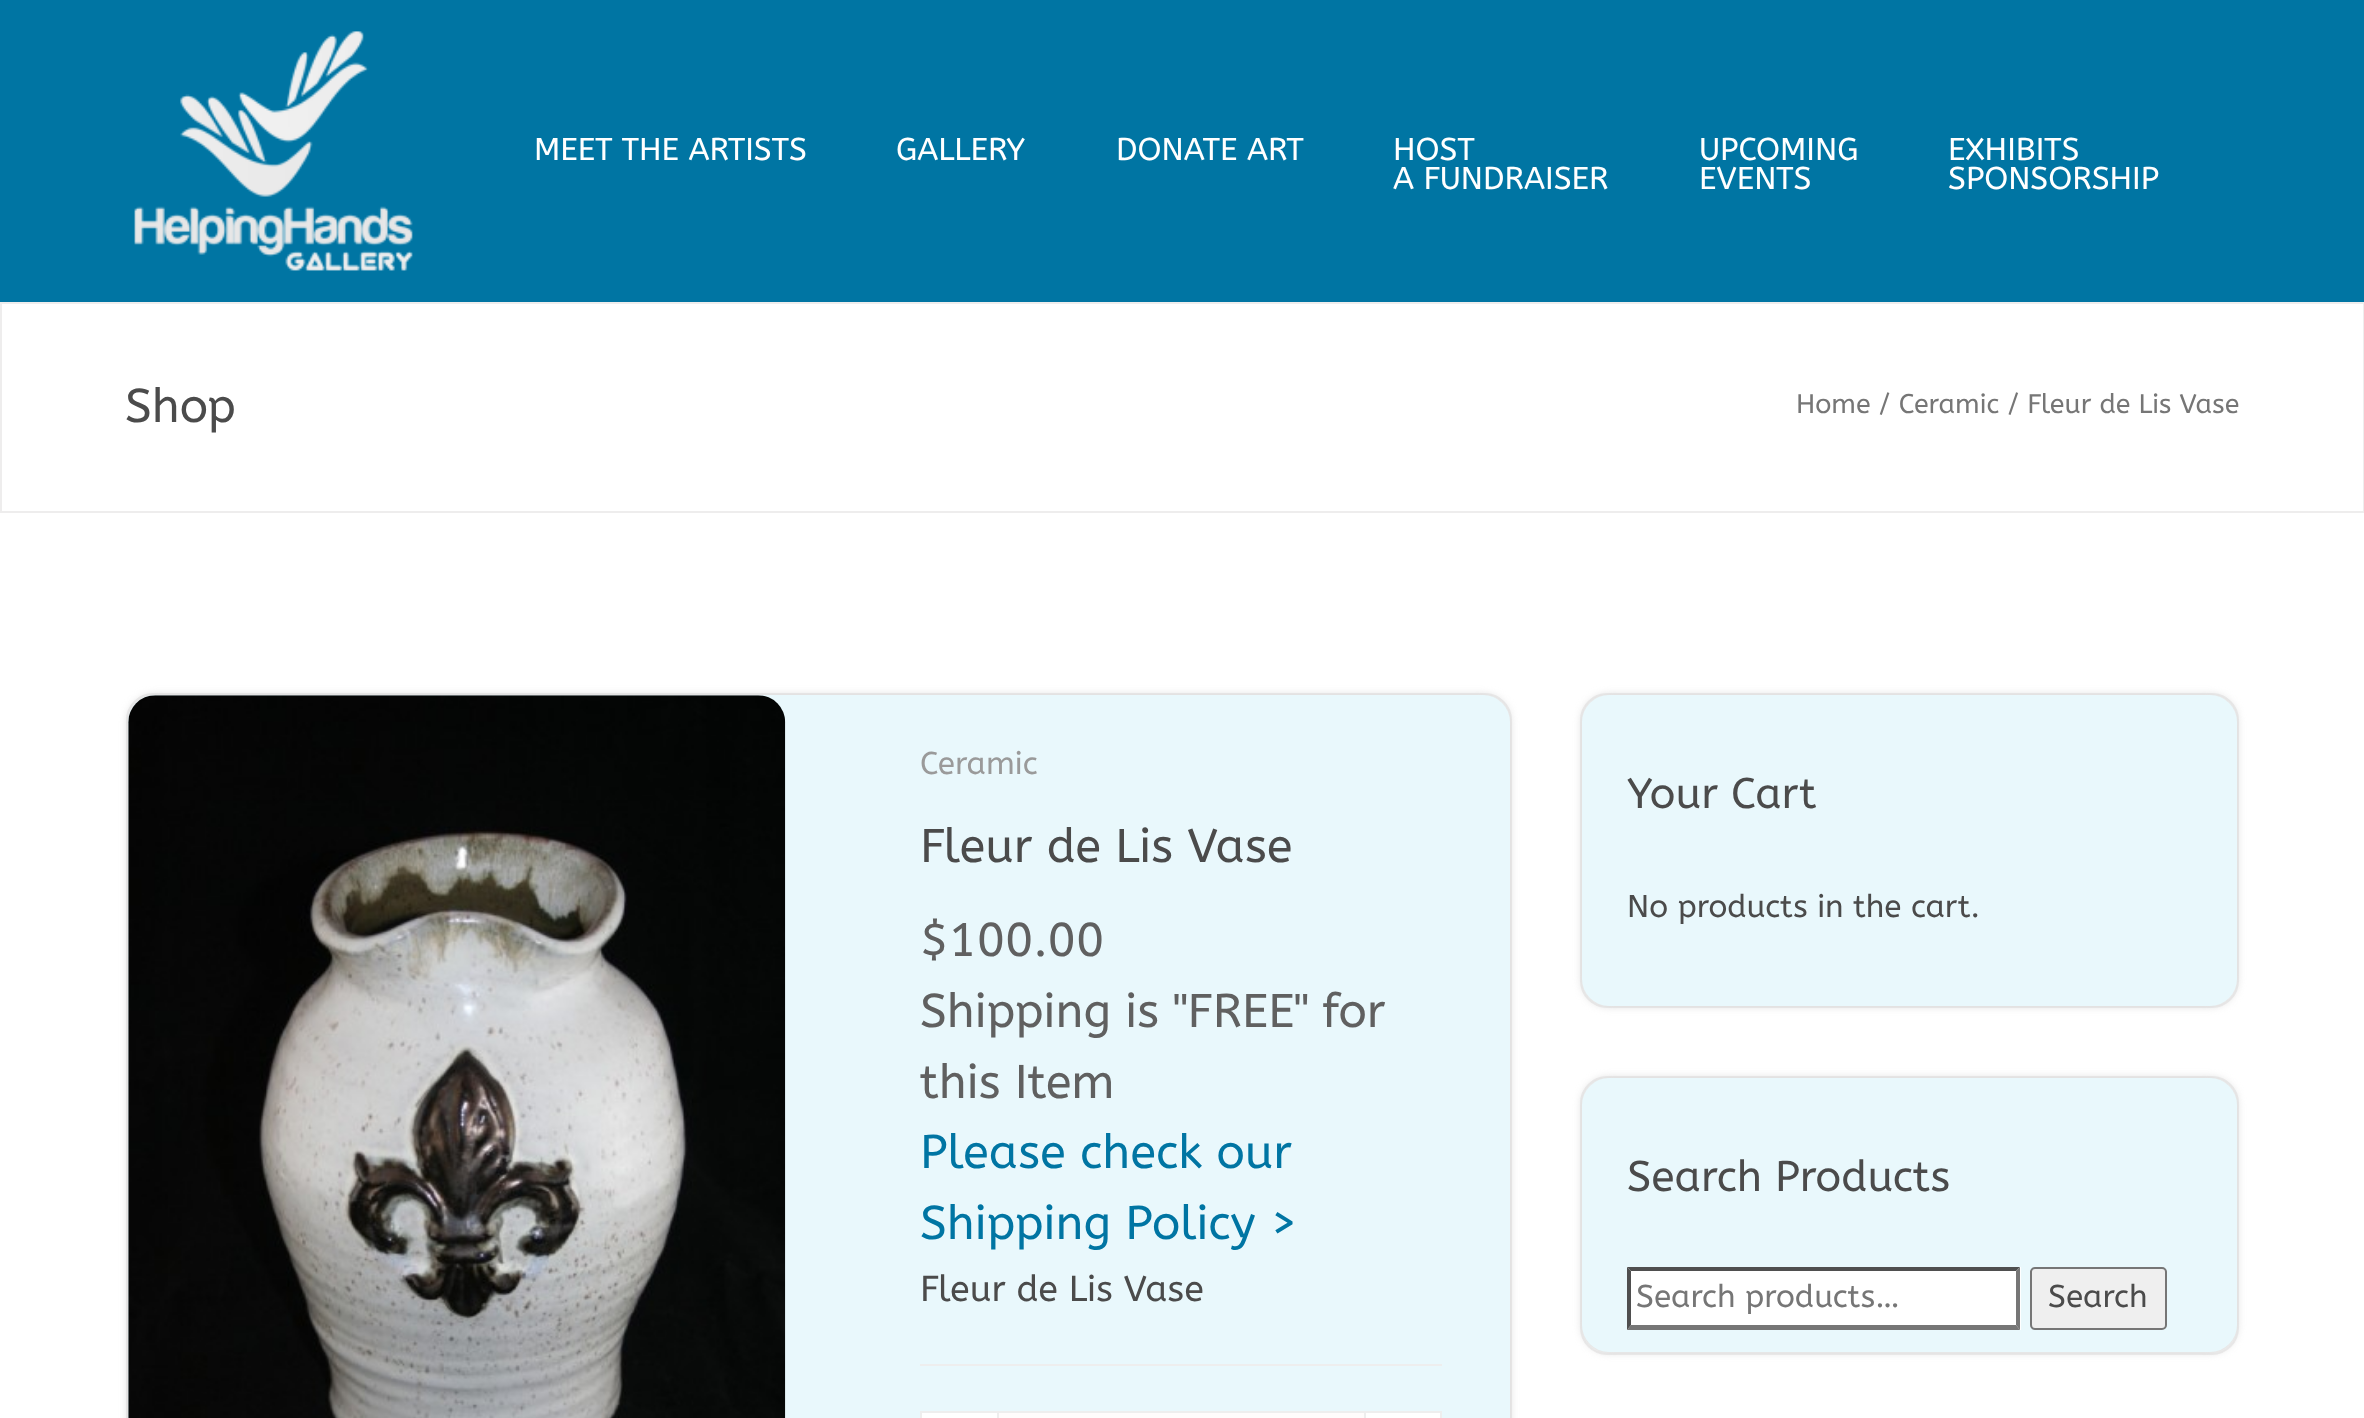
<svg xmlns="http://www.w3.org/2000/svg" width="2364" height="1418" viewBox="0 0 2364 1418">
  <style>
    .t1 { font: 31.5px ABeeZee; fill: #fff; }
    .t2 { font: 47.25px ABeeZee; fill: #4b4b4b; }
    .t3 { font: 26.9px ABeeZee; fill: #767676; }
    .t4 { font: 31.5px ABeeZee; fill: #9a9a9a; }
    .t5 { font: 47.25px ABeeZee; fill: #606060; }
    .t6 { font: 47.25px ABeeZee; fill: #0075a3; }
    .t7 { font: 36px ABeeZee; fill: #4b4b4b; }
    .t8 { font: 42.75px ABeeZee; fill: #4b4b4b; }
    .t9 { font: 31.5px ABeeZee; fill: #4b4b4b; }
    .t10 { font: 31.5px ABeeZee; fill: #767676; }
  </style>
  <rect width="100%" height="100%" fill="#fff"/>
  <rect x="0" y="0" width="2364" height="302" fill="#0075a3"/>
  <image x="134" y="31" width="279" height="240" href="images/1.png"/>
  <text x="534" y="160" class="t1">MEET THE ARTISTS</text>
  <text x="896" y="160" class="t1">GALLERY</text>
  <text x="1116" y="160" class="t1">DONATE ART</text>
  <text x="1393" y="160" class="t1">HOST</text>
  <text x="1393" y="189" class="t1">A FUNDRAISER</text>
  <text x="1699" y="160" class="t1">UPCOMING</text>
  <text x="1699" y="189" class="t1">EVENTS</text>
  <text x="1948" y="160" class="t1">EXHIBITS</text>
  <text x="1948" y="189" class="t1">SPONSORSHIP</text>
  <rect x="1" y="303" width="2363" height="209" fill="none" stroke="#eeeded" stroke-width="2"/>
  <text x="125" y="422" class="t2">Shop</text>
  <text x="1796" y="413" class="t3">Home / Ceramic / Fleur de Lis Vase</text>
  <rect x="127" y="694" width="1384" height="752" rx="26" fill="#f5f5f5" stroke="#eeeded" stroke-width="2"/>
  <rect x="128" y="695" width="1382" height="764" rx="27" fill="#d6d6d6" filter="blur(4.5px)"/>
  <rect x="128" y="695" width="1382" height="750" rx="27" fill="#e9f8fc"/>
  <image x="128" y="695" width="658" height="723" href="images/2.png"/>
  <text x="920" y="774" class="t4">Ceramic</text>
  <text x="920" y="862" class="t2">Fleur de Lis Vase</text>
  <text x="920" y="956" class="t5">$100.00</text>
  <text x="920" y="1027" class="t5">Shipping is "FREE" for</text>
  <text x="920" y="1098" class="t5">this Item</text>
  <text x="920" y="1168" class="t6">Please check our</text>
  <text x="920" y="1239" class="t6">Shipping Policy &gt;</text>
  <text x="920" y="1301" class="t7">Fleur de Lis Vase</text>
  <rect x="920" y="1364" width="522" height="2" fill="#eee"/>
  <rect x="920" y="1413" width="77" height="5" fill="#fff"/>
  <rect x="920" y="1411" width="77" height="2" fill="#eee"/>
  <rect x="920" y="1411" width="2" height="7" fill="#eee"/>
  <rect x="998" y="1412" width="367" height="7" fill="#fffcfc" stroke="#eee" stroke-width="2"/>
  <rect x="1366" y="1413" width="76" height="5" fill="#fff"/>
  <rect x="1366" y="1411" width="76" height="2" fill="#eee"/>
  <rect x="1440" y="1411" width="2" height="7" fill="#eee"/>
  <rect x="1581" y="694" width="657" height="313" rx="26" fill="#f5f5f5" stroke="#eeeded" stroke-width="2"/>
  <rect x="1582" y="695" width="655" height="311" rx="27" fill="#d6d6d6" filter="blur(4.5px)"/>
  <rect x="1582" y="695" width="655" height="311" rx="27" fill="#e9f8fc"/>
  <text x="1627" y="808" class="t8">Your Cart</text>
  <text x="1627" y="917" class="t9">No products in the cart.</text>
  <rect x="1581" y="1077" width="657" height="277" rx="26" fill="#f5f5f5" stroke="#eeeded" stroke-width="2"/>
  <rect x="1582" y="1078" width="655" height="274" rx="27" fill="#d6d6d6" filter="blur(4.5px)"/>
  <rect x="1582" y="1078" width="655" height="274" rx="27" fill="#e9f8fc"/>
  <text x="1627" y="1191" class="t8">Search Products</text>
  <rect x="1627" y="1267" width="394" height="63" fill="#fff"/>
  <path d="M1627 1267H2020L2016 1271H1631Z" fill="#4f4f4f"/>
  <path d="M2020 1267V1330L2016 1325V1271Z" fill="#767676"/>
  <path d="M2020 1330H1627L1631 1325H2016Z" fill="#767676"/>
  <path d="M1627 1330V1267L1631 1271V1325Z" fill="#4f4f4f"/>
  <text x="1636" y="1307" class="t10">Search products…</text>
  <rect x="2031" y="1268" width="135" height="61" rx="4" fill="#efefef" stroke="#767676" stroke-width="2"/>
  <text x="2048" y="1307" class="t9">Search</text>
</svg>
